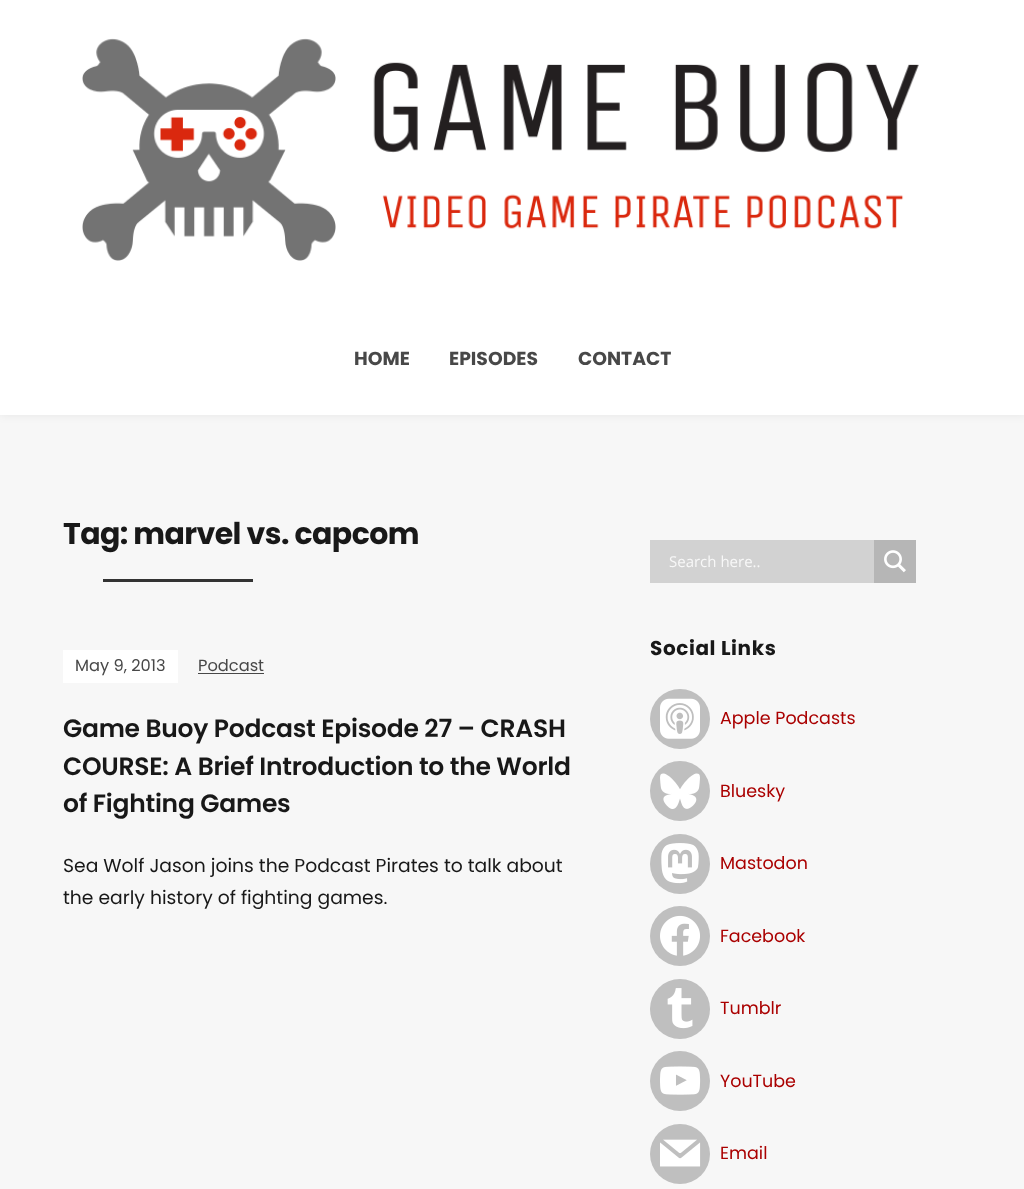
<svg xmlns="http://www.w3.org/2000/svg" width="1024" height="1189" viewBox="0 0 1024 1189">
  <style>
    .t1 { font: bold 18.75px Poppins; fill: #484848; }
    .t2 { font: bold 30px Poppins; letter-spacing: -0.6px; fill: #181818; }
    .t3 { font: 16.25px Poppins; fill: #484848; }
    .t4 { font: 600 25px Poppins; letter-spacing: -0.25px; fill: #181818; }
    .t5 { font: 18.75px Poppins; fill: #181818; }
    .t6 { font: 15px Open Sans; fill: #f8f8f8; }
    .t7 { font: bold 20px Poppins; letter-spacing: 0.6px; fill: #181818; }
    .t8 { font: 17.5px Poppins; fill: #a00; }
  </style>
  <rect width="100%" height="100%" fill="#f7f7f7"/>
  <rect x="0" y="0" width="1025" height="415" fill="#00000012" filter="blur(5px)"/>
  <rect x="0" y="0" width="1024" height="415" fill="#fff"/>
  <image x="82" y="38" width="837" height="223" href="images/1.png"/>
  <text x="354" y="365" class="t1">HOME</text>
  <text x="449" y="365" class="t1">EPISODES</text>
  <text x="578" y="365" class="t1">CONTACT</text>
  <text x="63" y="544" class="t2">Tag: marvel vs. capcom</text>
  <rect x="103" y="579" width="150" height="3" fill="#333"/>
  <rect x="63" y="650" width="115" height="33" fill="#fff"/>
  <text x="75" y="671" class="t3">May 9, 2013</text>
  <text x="198" y="671" class="t3">Podcast</text>
  <rect x="198" y="673" width="66" height="1" fill="#484848"/>
  <text x="63" y="737" class="t4">Game Buoy Podcast Episode 27 – CRASH</text>
  <text x="63" y="775" class="t4">COURSE: A Brief Introduction to the World</text>
  <text x="63" y="812" class="t4">of Fighting Games</text>
  <text x="63" y="872" class="t5">Sea Wolf Jason joins the Podcast Pirates to talk about</text>
  <text x="63" y="904" class="t5">the early history of fighting games.</text>
  <rect x="650" y="540" width="224" height="43" fill="#d2d2d2"/>
  <text x="669" y="567" class="t6">Search here..</text>
  <rect x="874" y="540" width="42" height="43" fill="#b6b6b6"/>
  <image x="884" y="550" width="22" height="23" href="images/2.png"/>
  <text x="650" y="655" class="t7">Social Links</text>
  <circle cx="680" cy="719" r="30" fill="#bfbfbf"/>
  <image x="660" y="698" width="40" height="41" href="images/3.png"/>
  <text x="720" y="724" class="t8">Apple Podcasts</text>
  <circle cx="680" cy="791" r="30" fill="#bfbfbf"/>
  <image x="660" y="773" width="40" height="36" href="images/4.png"/>
  <text x="720" y="797" class="t8">Bluesky</text>
  <circle cx="680" cy="864" r="30" fill="#bfbfbf"/>
  <image x="661" y="843" width="38" height="41" href="images/5.png"/>
  <text x="720" y="869" class="t8">Mastodon</text>
  <circle cx="680" cy="936" r="30" fill="#bfbfbf"/>
  <image x="660" y="915" width="40" height="41" href="images/6.png"/>
  <text x="720" y="942" class="t8">Facebook</text>
  <circle cx="680" cy="1009" r="30" fill="#bfbfbf"/>
  <image x="667" y="988" width="26" height="41" href="images/7.png"/>
  <text x="720" y="1014" class="t8">Tumblr</text>
  <circle cx="680" cy="1081" r="30" fill="#bfbfbf"/>
  <image x="660" y="1066" width="41" height="29" href="images/8.png"/>
  <text x="720" y="1087" class="t8">YouTube</text>
  <circle cx="680" cy="1154" r="30" fill="#bfbfbf"/>
  <image x="660" y="1139" width="41" height="28" href="images/9.png"/>
  <text x="720" y="1159" class="t8">Email</text>
</svg>
